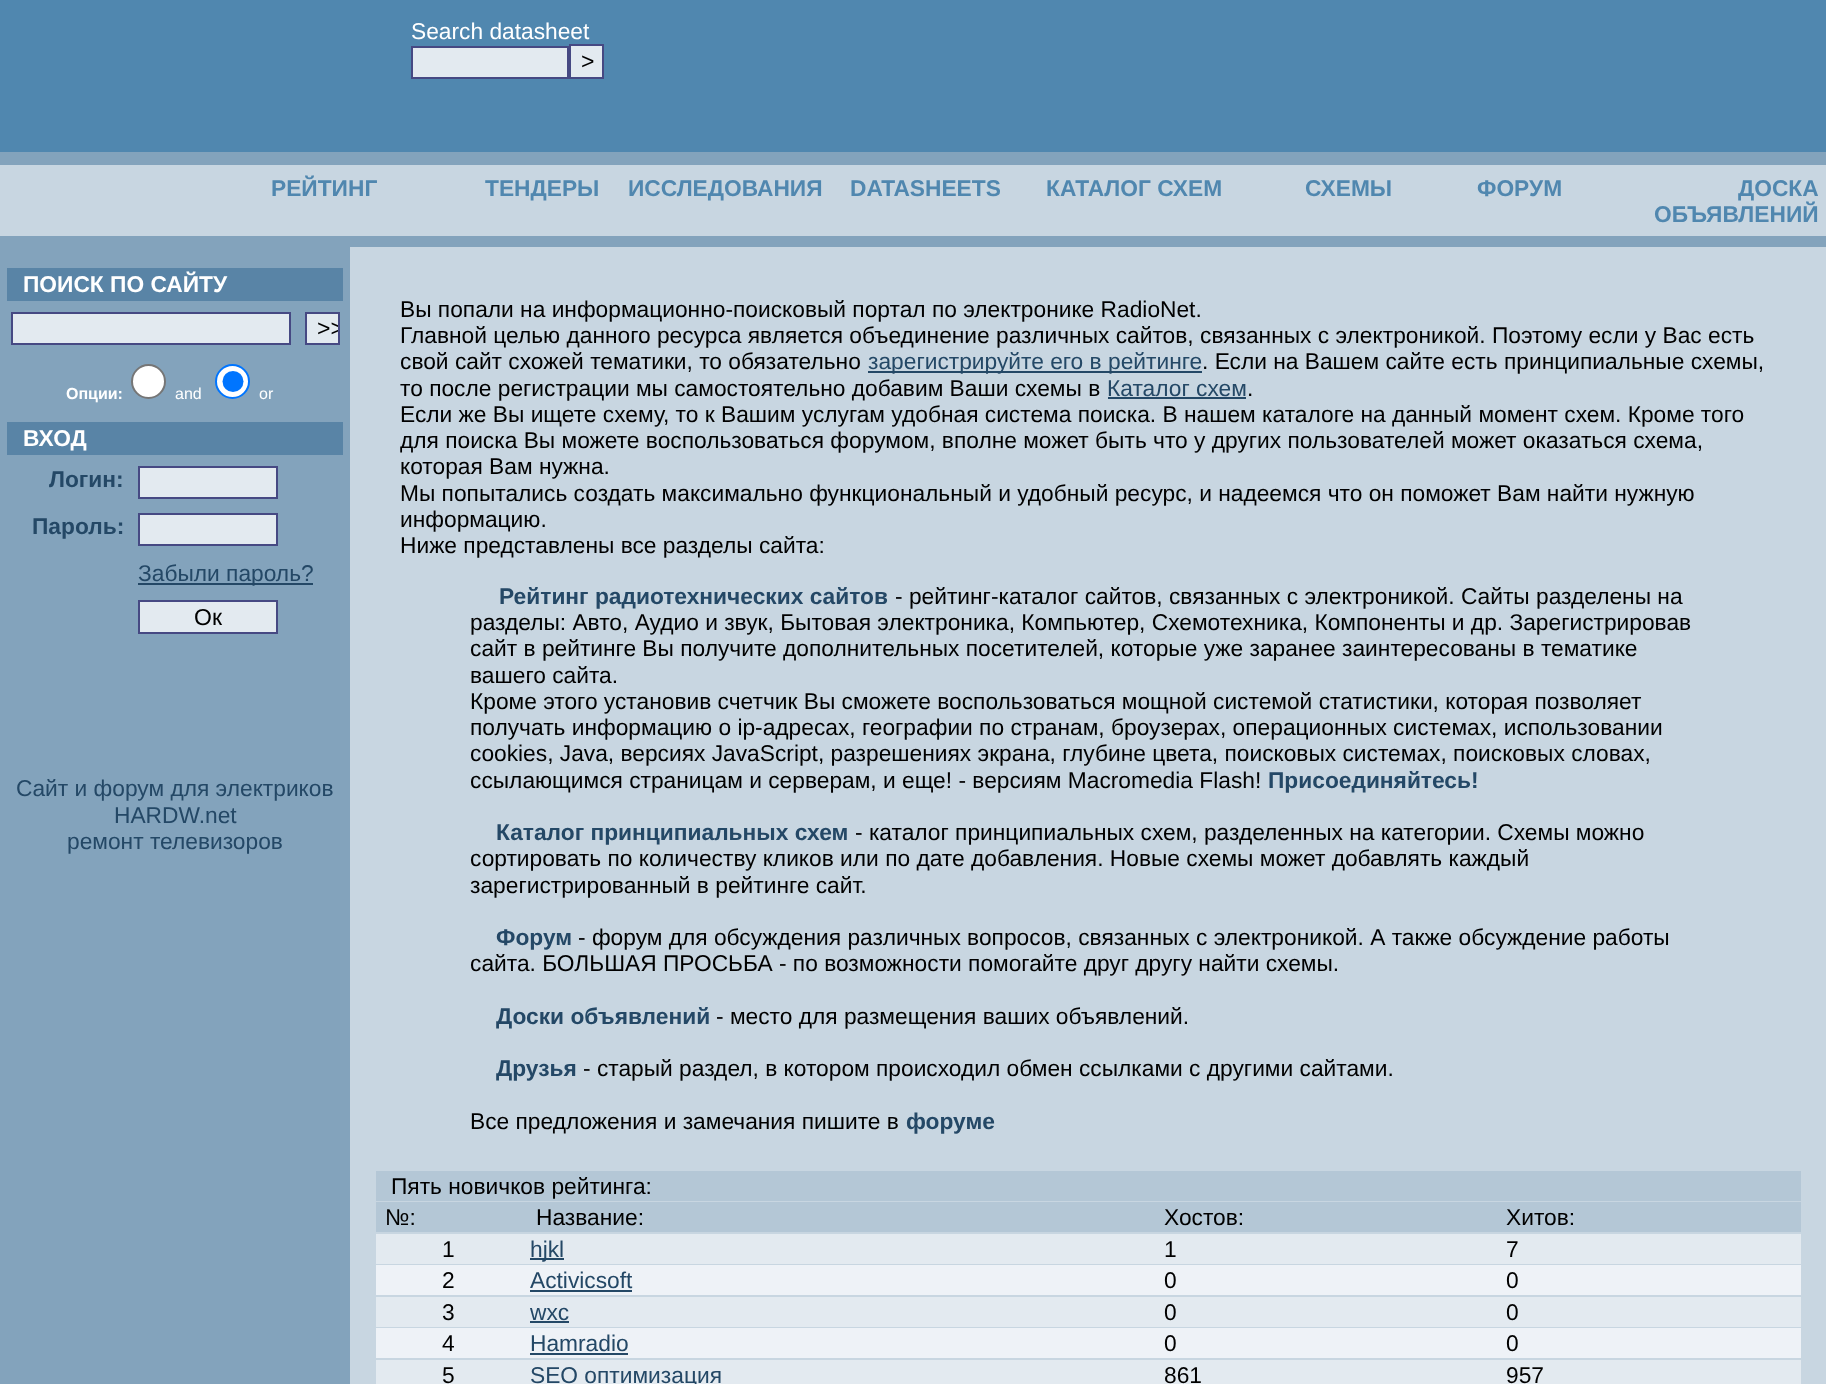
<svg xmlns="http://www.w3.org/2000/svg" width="1826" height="1384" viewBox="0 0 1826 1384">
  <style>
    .t1 { font: 22.75px Liberation Sans; fill: #fff; }
    .t2 { font: 23px Liberation Sans; fill: #000; }
    .t3 { font: bold 22.75px Liberation Sans; fill: #5087af; }
    .t4 { font: bold 22.75px Liberation Sans; fill: #fff; }
    .t5 { font: bold 16px Liberation Sans; fill: #fff; }
    .t6 { font: 16px Liberation Sans; fill: #fff; }
    .t7 { font: bold 22.75px Liberation Sans; fill: #244866; }
    .t8 { font: 22.75px Liberation Sans; fill: #244866; }
    .t9 { font: 22.75px Liberation Sans; fill: #000; }
  </style>
  <defs>
    <clipPath id="clip1"><rect x="306" y="313" width="32" height="30"/></clipPath>
  </defs>
  <rect width="100%" height="100%" fill="#c8d6e1"/>
  <rect x="0" y="0" width="1826" height="152" fill="#5087af"/>
  <text x="411" y="39" class="t1">Search datasheet</text>
  <rect x="412" y="47" width="156" height="31" fill="#e3eaf0" stroke="#464983" stroke-width="2"/>
  <rect x="570" y="45" width="33" height="33" fill="#e3eaf0" stroke="#464983" stroke-width="2"/>
  <text x="581" y="69" class="t2">&gt;</text>
  <rect x="0" y="152" width="1826" height="13" fill="#83a3bc"/>
  <text x="271" y="196" class="t3">РЕЙТИНГ</text>
  <text x="485" y="196" class="t3">ТЕНДЕРЫ</text>
  <text x="628" y="196" class="t3">ИССЛЕДОВАНИЯ</text>
  <text x="850" y="196" class="t3">DATASHEETS</text>
  <text x="1046" y="196" class="t3">КАТАЛОГ СХЕМ</text>
  <text x="1305" y="196" class="t3">СХЕМЫ</text>
  <text x="1477" y="196" class="t3">ФОРУМ</text>
  <text x="1738" y="196" class="t3">ДОСКА</text>
  <text x="1654" y="222" class="t3">ОБЪЯВЛЕНИЙ</text>
  <rect x="0" y="236" width="1826" height="11" fill="#83a3bc"/>
  <rect x="0" y="247" width="350" height="1137" fill="#83a3bc"/>
  <rect x="7" y="268" width="336" height="33" fill="#5984a6"/>
  <text x="23" y="292" class="t4">ПОИСК ПО САЙТУ</text>
  <rect x="12" y="313" width="278" height="31" fill="#e3eaf0" stroke="#464983" stroke-width="2"/>
  <rect x="306" y="313" width="33" height="31" fill="#e3eaf0" stroke="#464983" stroke-width="2"/>
  <g clip-path="url(#clip1)">
    <text x="317" y="336" class="t2">&gt;&gt;</text>
  </g>
  <text x="66" y="399" class="t5">Опции:</text>
  <circle cx="148.5" cy="381.5" r="16.5" fill="#fff" stroke="#767676" stroke-width="2"/>
  <text x="175" y="399" class="t6">and</text>
  <circle cx="232.5" cy="381.5" r="16.5" fill="#fff" stroke="#0075ff" stroke-width="2"/>
  <circle cx="233" cy="381.5" r="10.5" fill="#0075ff"/>
  <text x="259" y="399" class="t6">or</text>
  <rect x="7" y="422" width="336" height="33" fill="#5984a6"/>
  <text x="23" y="446" class="t4">ВХОД</text>
  <text x="49" y="487" class="t7">Логин:</text>
  <rect x="139" y="467" width="138" height="31" fill="#e3eaf0" stroke="#464983" stroke-width="2"/>
  <text x="32" y="534" class="t7">Пароль:</text>
  <rect x="139" y="514" width="138" height="31" fill="#e3eaf0" stroke="#464983" stroke-width="2"/>
  <rect x="138" y="583" width="175" height="2" fill="#244866"/>
  <text x="138" y="581" class="t8">Забыли пароль?</text>
  <rect x="139" y="601" width="138" height="32" fill="#e3eaf0" stroke="#464983" stroke-width="2"/>
  <text x="194" y="625" class="t2">Ок</text>
  <text x="16" y="796" class="t8">Cайт и форум для электриков</text>
  <text x="114" y="823" class="t8">HARDW.net</text>
  <text x="67" y="849" class="t8">ремонт телевизоров</text>
  <text x="400" y="317" class="t9">Вы попали на информационно-поисковый портал по электронике RadioNet.</text>
  <text x="400" y="343" class="t9">Главной целью данного ресурса является объединение различных сайтов, связанных с электроникой. Поэтому если у Вас есть</text>
  <text x="400" y="369" class="t9">свой сайт схожей тематики, то обязательно</text>
  <rect x="868" y="371" width="334" height="2" fill="#244866"/>
  <text x="868" y="369" class="t8">зарегистрируйте его в рейтинге</text>
  <text x="1202" y="369" class="t9">. Если на Вашем сайте есть принципиальные схемы,</text>
  <text x="400" y="396" class="t9">то после регистрации мы самостоятельно добавим Ваши схемы в</text>
  <text x="1107" y="396" class="t8">Каталог схем</text>
  <rect x="1108" y="397" width="138" height="2" fill="#244866"/>
  <text x="1247" y="396" class="t9">.</text>
  <text x="400" y="422" class="t9">Если же Вы ищете схему, то к Вашим услугам удобная система поиска. В нашем каталоге на данный момент схем. Кроме того</text>
  <text x="400" y="448" class="t9">для поиска Вы можете воспользоваться форумом, вполне может быть что у других пользователей может оказаться схема,</text>
  <text x="400" y="474" class="t9">которая Вам нужна.</text>
  <text x="400" y="501" class="t9">Мы попытались создать максимально функциональный и удобный ресурс, и надеемся что он поможет Вам найти нужную</text>
  <text x="400" y="527" class="t9">информацию.</text>
  <text x="400" y="553" class="t9">Ниже представлены все разделы сайта:</text>
  <text x="499" y="604" class="t7">Рейтинг радиотехнических сайтов</text>
  <text x="895" y="604" class="t9">- рейтинг-каталог сайтов, связанных с электроникой. Сайты разделены на</text>
  <text x="470" y="630" class="t9">разделы: Авто, Аудио и звук, Бытовая электроника, Компьютер, Схемотехника, Компоненты и др. Зарегистрировав</text>
  <text x="470" y="656" class="t9">сайт в рейтинге Вы получите дополнительных посетителей, которые уже заранее заинтересованы в тематике</text>
  <text x="470" y="683" class="t9">вашего сайта.</text>
  <text x="470" y="709" class="t9">Кроме этого установив счетчик Вы сможете воспользоваться мощной системой статистики, которая позволяет</text>
  <text x="470" y="735" class="t9">получать информацию о ip-адресах, географии по странам, броузерах, операционных системах, использовании</text>
  <text x="470" y="761" class="t9">cookies, Java, версиях JavaScript, разрешениях экрана, глубине цвета, поисковых системах, поисковых словах,</text>
  <text x="470" y="788" class="t9">ссылающимся страницам и серверам, и еще! - версиям Macromedia Flash!</text>
  <text x="1268" y="788" class="t7">Присоединяйтесь!</text>
  <text x="496" y="840" class="t7">Каталог принципиальных схем</text>
  <text x="855" y="840" class="t9">- каталог принципиальных схем, разделенных на категории. Схемы можно</text>
  <text x="470" y="866" class="t9">сортировать по количеству кликов или по дате добавления. Новые схемы может добавлять каждый</text>
  <text x="470" y="893" class="t9">зарегистрированный в рейтинге сайт.</text>
  <text x="496" y="945" class="t7">Форум</text>
  <text x="578" y="945" class="t9">- форум для обсуждения различных вопросов, связанных с электроникой. А также обсуждение работы</text>
  <text x="470" y="971" class="t9">сайта. БОЛЬШАЯ ПРОСЬБА - по возможности помогайте друг другу найти схемы.</text>
  <text x="496" y="1024" class="t7">Доски объявлений</text>
  <text x="716" y="1024" class="t9">- место для размещения ваших объявлений.</text>
  <text x="496" y="1076" class="t7">Друзья</text>
  <text x="583" y="1076" class="t9">- старый раздел, в котором происходил обмен ссылками с другими сайтами.</text>
  <text x="470" y="1129" class="t9">Все предложения и замечания пишите в</text>
  <text x="906" y="1129" class="t7">форуме</text>
  <rect x="376" y="1171" width="1425" height="30" fill="#b4c7d6"/>
  <text x="391" y="1194" class="t9">Пять новичков рейтинга:</text>
  <rect x="376" y="1202" width="1425" height="30" fill="#b4c7d6"/>
  <text x="385" y="1225" class="t9">№:</text>
  <text x="536" y="1225" class="t9">Название:</text>
  <text x="1164" y="1225" class="t9">Хостов:</text>
  <text x="1506" y="1225" class="t9">Хитов:</text>
  <rect x="376" y="1234" width="1425" height="30" fill="#e3eaf0"/>
  <text x="442" y="1257" class="t9">1</text>
  <rect x="530" y="1258" width="34" height="2" fill="#244866"/>
  <text x="530" y="1257" class="t8">hjkl</text>
  <text x="1164" y="1257" class="t9">1</text>
  <text x="1506" y="1257" class="t9">7</text>
  <rect x="376" y="1265" width="1425" height="30" fill="#eef2f7"/>
  <text x="442" y="1288" class="t9">2</text>
  <text x="530" y="1288" class="t8">Activicsoft</text>
  <rect x="530" y="1290" width="102" height="2" fill="#244866"/>
  <text x="1164" y="1288" class="t9">0</text>
  <text x="1506" y="1288" class="t9">0</text>
  <rect x="376" y="1297" width="1425" height="30" fill="#e3eaf0"/>
  <text x="442" y="1320" class="t9">3</text>
  <text x="530" y="1320" class="t8">wxc</text>
  <rect x="530" y="1321" width="39" height="2" fill="#244866"/>
  <text x="1164" y="1320" class="t9">0</text>
  <text x="1506" y="1320" class="t9">0</text>
  <rect x="376" y="1328" width="1425" height="30" fill="#eef2f7"/>
  <text x="442" y="1351" class="t9">4</text>
  <text x="530" y="1351" class="t8">Hamradio</text>
  <rect x="530" y="1353" width="98" height="2" fill="#244866"/>
  <text x="1164" y="1351" class="t9">0</text>
  <text x="1506" y="1351" class="t9">0</text>
  <rect x="376" y="1360" width="1425" height="24" fill="#e3eaf0"/>
  <text x="442" y="1383" class="t9">5</text>
  <text x="530" y="1383" class="t8">SEO оптимизация</text>
  <text x="1164" y="1383" class="t9">861</text>
  <text x="1506" y="1383" class="t9">957</text>
</svg>
